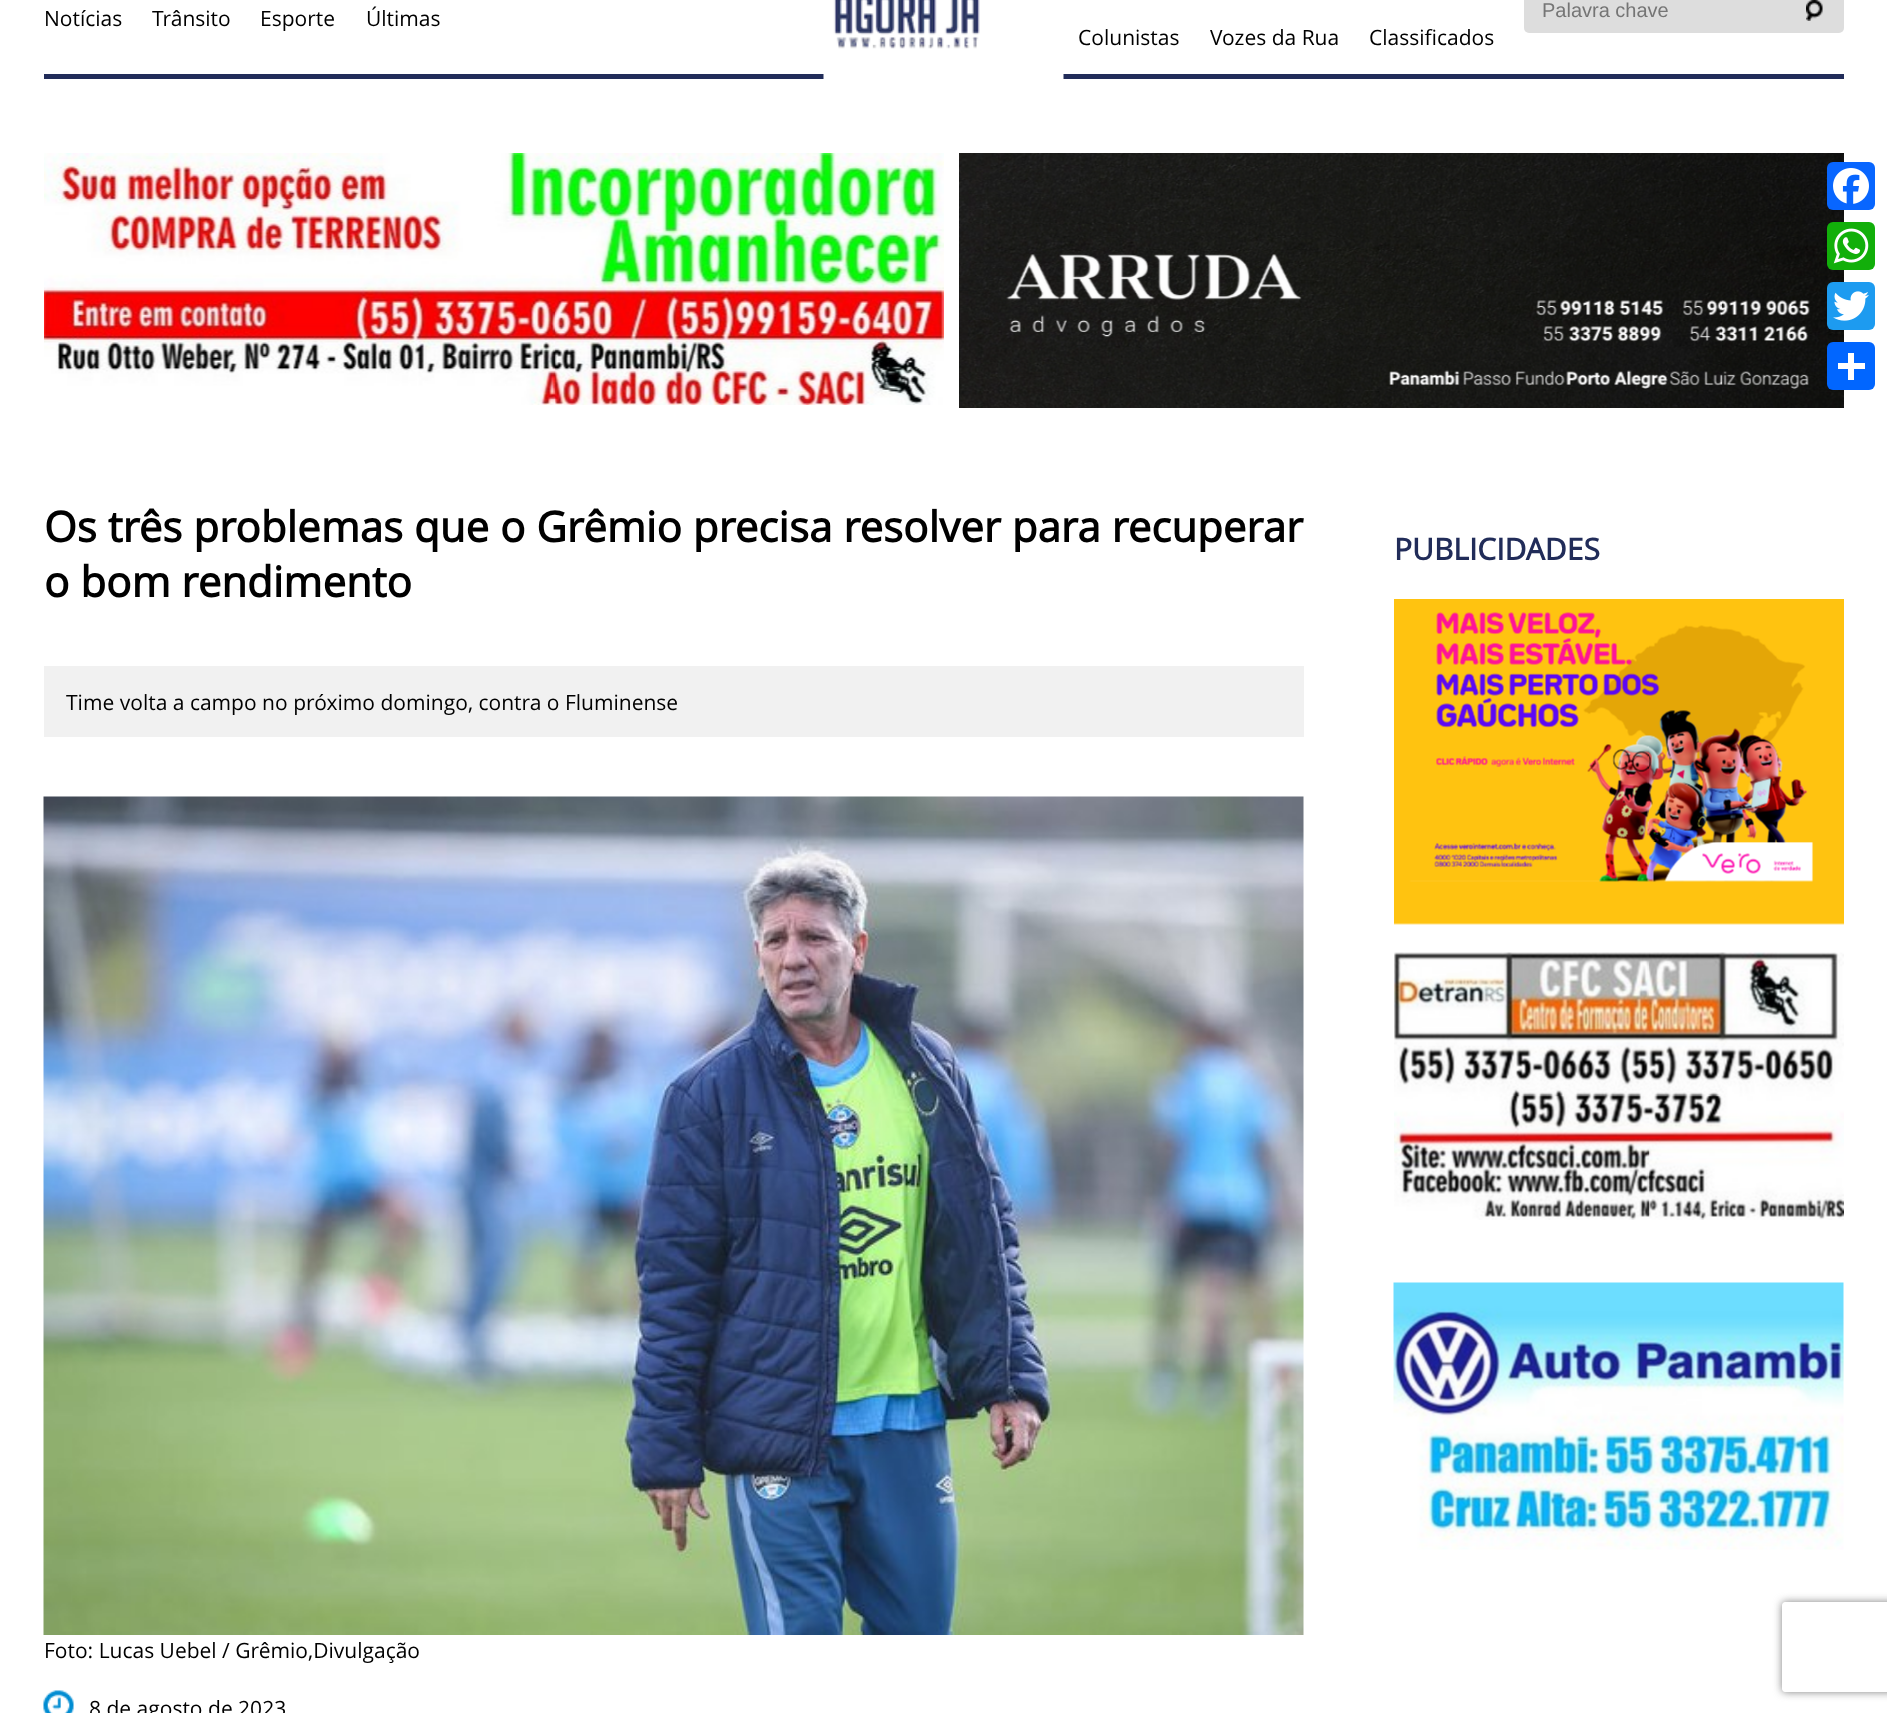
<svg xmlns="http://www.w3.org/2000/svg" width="1887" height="1713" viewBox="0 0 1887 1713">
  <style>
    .t1 { font: 21px Open Sans; fill: #000; }
    .t2 { font: 20px Liberation Sans; fill: #757575; }
    .t3 { font: bold 42px Open Sans; fill: #000; }
    .t4 { font: bold 30px Open Sans; fill: #212c59; }
  </style>
  <defs>
    <clipPath id="clip1"><path d="M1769 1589H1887V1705H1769ZM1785 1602H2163C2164.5 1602 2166 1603.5 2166 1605V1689C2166 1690.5 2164.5 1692 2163 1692H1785C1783.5 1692 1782 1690.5 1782 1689V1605C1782 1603.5 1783.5 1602 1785 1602Z" clip-rule="evenodd"/></clipPath>
  </defs>
  <rect width="100%" height="100%" fill="#fff"/>
  <rect x="44" y="74" width="1800" height="5" fill="#212c59"/>
  <image x="823" y="0" width="241" height="79" href="images/1.png"/>
  <text x="44" y="26" class="t1">Notícias</text>
  <text x="152" y="26" class="t1">Trânsito</text>
  <text x="260" y="26" class="t1">Esporte</text>
  <text x="366" y="26" class="t1">Últimas</text>
  <rect x="1524" y="-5" width="320" height="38" rx="5" fill="#ddd"/>
  <text x="1542" y="17" class="t2">Palavra chave</text>
  <image x="1806" y="0" width="17" height="21" href="images/2.png"/>
  <text x="1078" y="45" class="t1">Colunistas</text>
  <text x="1210" y="45" class="t1">Vozes da Rua</text>
  <text x="1369" y="45" class="t1">Classificados</text>
  <image x="44" y="153" width="900" height="252" href="images/3.png"/>
  <image x="959" y="153" width="885" height="255" href="images/4.png"/>
  <rect x="1827" y="162" width="48" height="48" rx="6" fill="#0866ff"/>
  <image x="1833" y="168" width="36" height="36" href="images/5.png"/>
  <rect x="1827" y="222" width="48" height="48" rx="6" fill="#12af0a"/>
  <image x="1833" y="228" width="36" height="36" href="images/6.png"/>
  <rect x="1827" y="282" width="48" height="48" rx="6" fill="#1d9bf0"/>
  <image x="1833" y="291" width="36" height="30" href="images/7.png"/>
  <rect x="1827" y="342" width="48" height="48" rx="6" fill="#0166ff"/>
  <rect x="1848" y="353" width="6" height="27" fill="#fff"/>
  <rect x="1838" y="363" width="27" height="6" fill="#fff"/>
  <text x="44" y="542" class="t3">Os três problemas que o Grêmio precisa resolver para recuperar</text>
  <text x="44" y="597" class="t3">o bom rendimento</text>
  <rect x="44" y="666" width="1260" height="71" fill="#f1f1f1"/>
  <text x="66" y="710" class="t1">Time volta a campo no próximo domingo, contra o Fluminense</text>
  <image x="43" y="796" width="1261" height="839" href="images/8.png"/>
  <text x="44" y="1658" class="t1">Foto: Lucas Uebel / Grêmio,Divulgação</text>
  <image x="43" y="1690" width="31" height="23" href="images/9.png"/>
  <text x="89" y="1716" class="t1">8 de agosto de 2023</text>
  <text x="1394" y="560" class="t4">PUBLICIDADES</text>
  <image x="1394" y="599" width="450" height="326" href="images/10.png"/>
  <image x="1394" y="952" width="450" height="268" href="images/11.png"/>
  <image x="1393" y="1282" width="451" height="268" href="images/12.png"/>
  <g clip-path="url(#clip1)">
    <rect x="1782" y="1602" width="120" height="90" rx="3" fill="#808080" filter="blur(4px)"/>
  </g>
</svg>
